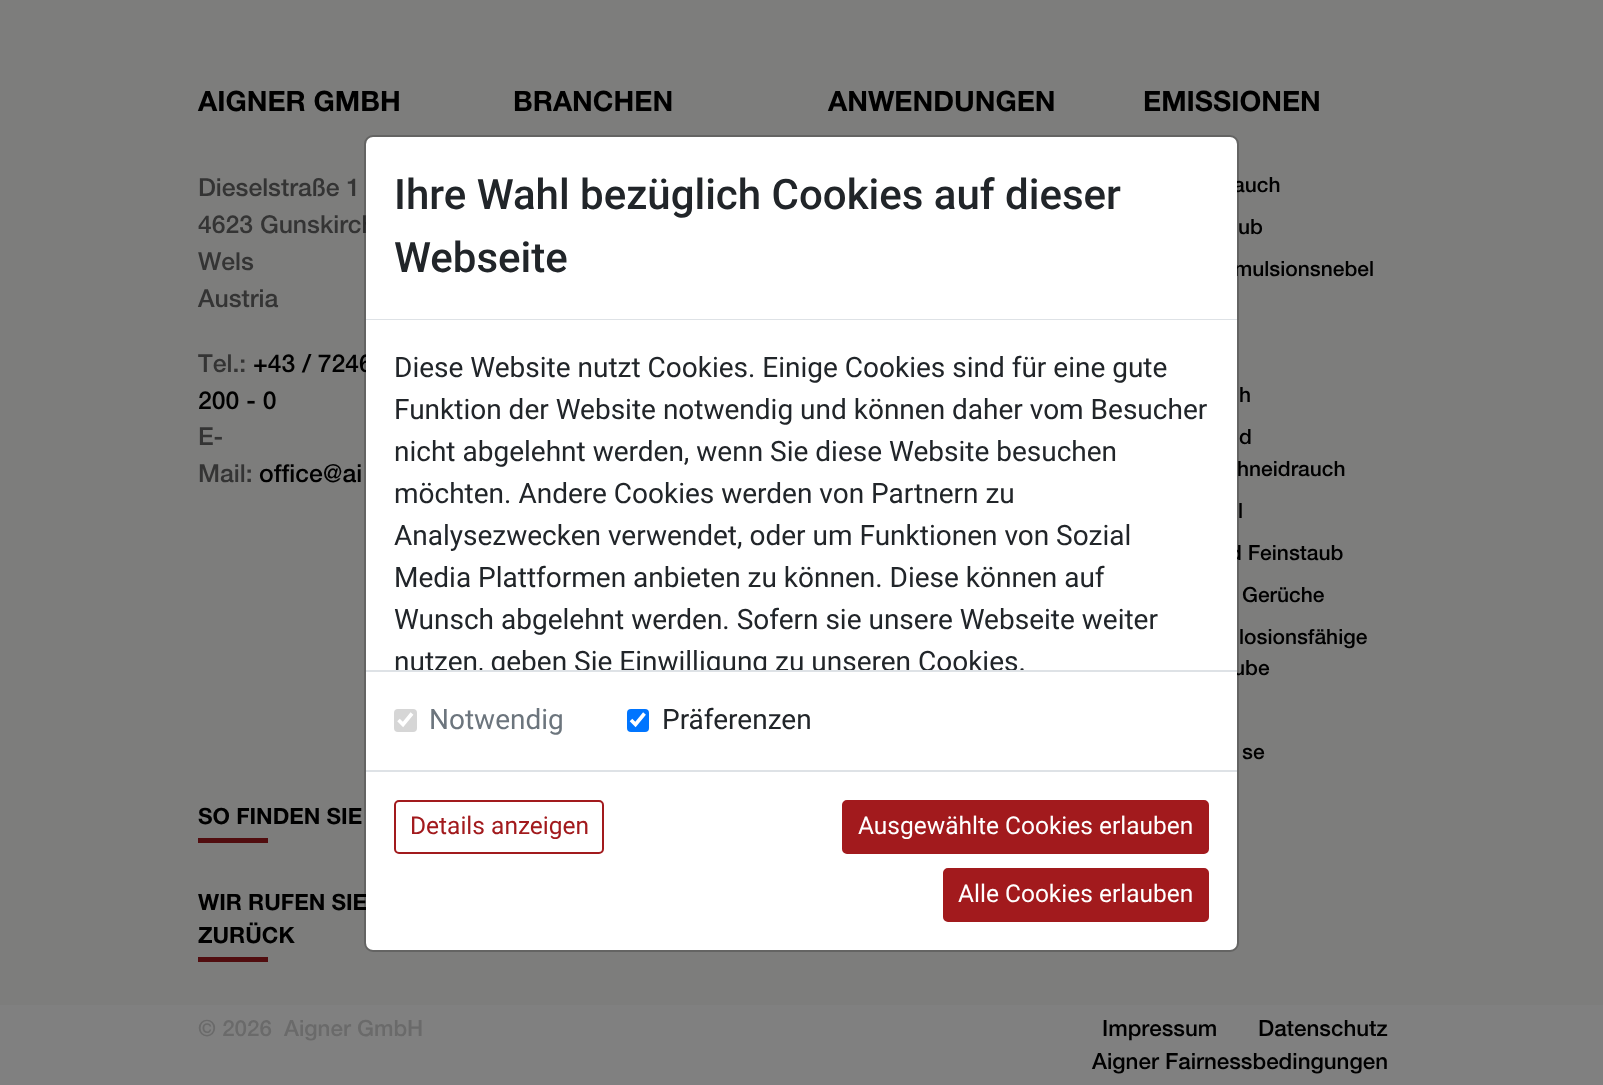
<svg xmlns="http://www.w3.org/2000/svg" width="1603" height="1085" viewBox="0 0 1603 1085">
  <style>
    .t1 { font: bold 28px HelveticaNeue; fill: #000; }
    .t2 { font: 500 24.75px HelveticaNeue; fill: #343434; }
    .t3 { font: 500 24.75px HelveticaNeue; fill: #000; }
    .t4 { font: bold 22.4px HelveticaNeue; fill: #000; }
    .t5 { font: 500 21px HelveticaNeue; fill: #000; }
    .t6 { font: 500 22.4px HelveticaNeue; fill: #6a6a6a; }
    .t7 { font: 500 22.4px HelveticaNeue; fill: #000; }
    .t8 { font: 500 42px Roboto; fill: #212529; }
    .t9 { font: 28px Roboto; fill: #212529; }
    .t10 { font: 28px Roboto; fill: #6c757d; }
    .t11 { font: 24.5px Roboto; fill: #a21a1d; }
    .t12 { font: 24.5px Roboto; fill: #fff; }
  </style>
  <defs>
    <clipPath id="clip1"><rect x="366" y="320" width="871" height="350"/></clipPath>
  </defs>
  <rect width="100%" height="100%" fill="#808080"/>
  <rect x="0" y="0" width="1603" height="1005" fill="#7d7d7c"/>
  <text x="198" y="111" class="t1">AIGNER GMBH</text>
  <text x="198" y="196" class="t2">Dieselstraße 1</text>
  <text x="198" y="233" class="t2">4623 Gunskirch</text>
  <text x="198" y="270" class="t2">Wels</text>
  <text x="198" y="307" class="t2">Austria</text>
  <text x="198" y="372" class="t2">Tel.:</text>
  <text x="253" y="372" class="t3">+43 / 7246</text>
  <text x="198" y="409" class="t3">200 - 0</text>
  <text x="198" y="445" class="t2">E-</text>
  <text x="198" y="482" class="t2">Mail:</text>
  <text x="259" y="482" class="t3">office@ai</text>
  <text x="198" y="824" class="t4">SO FINDEN SIE</text>
  <rect x="198" y="838" width="70" height="5" fill="#510d0f"/>
  <text x="198" y="910" class="t4">WIR RUFEN SIE</text>
  <text x="198" y="943" class="t4">ZURÜCK</text>
  <rect x="198" y="957" width="70" height="5" fill="#510d0f"/>
  <text x="513" y="111" class="t1">BRANCHEN</text>
  <text x="828" y="111" class="t1">ANWENDUNGEN</text>
  <text x="1143" y="111" class="t1">EMISSIONEN</text>
  <text x="1233" y="192" class="t5">auch</text>
  <text x="1238" y="234" class="t5">ub</text>
  <text x="1234" y="276" class="t5">mulsionsnebel</text>
  <text x="1239" y="402" class="t5">h</text>
  <text x="1239" y="444" class="t5">d</text>
  <text x="1237" y="476" class="t5">hneidrauch</text>
  <text x="1238" y="518" class="t5">l</text>
  <text x="1229" y="560" class="t5">d Feinstaub</text>
  <text x="1242" y="602" class="t5">Gerüche</text>
  <text x="1239" y="644" class="t5">losionsfähige</text>
  <text x="1233" y="675" class="t5">ube</text>
  <text x="1242" y="759" class="t5">se</text>
  <text x="198" y="1036" class="t6">© 2026</text>
  <text x="284" y="1036" class="t6">Aigner GmbH</text>
  <text x="1102" y="1036" class="t7">Impressum</text>
  <text x="1258" y="1036" class="t7">Datenschutz</text>
  <text x="1092" y="1069" class="t7">Aigner Fairnessbedingungen</text>
  <rect x="366" y="137" width="871" height="813" rx="7" fill="#fff"/>
  <rect x="365" y="136" width="873" height="815" rx="8" fill="none" stroke="#00000033" stroke-width="2"/>
  <rect x="366" y="319" width="871" height="1" fill="#dee2e6"/>
  <text x="394" y="209" class="t8">Ihre Wahl bezüglich Cookies auf dieser</text>
  <text x="394" y="272" class="t8">Webseite</text>
  <text x="394" y="377" class="t9">Diese Website nutzt Cookies. Einige Cookies sind für eine gute</text>
  <text x="394" y="419" class="t9">Funktion der Website notwendig und können daher vom Besucher</text>
  <text x="394" y="461" class="t9">nicht abgelehnt werden, wenn Sie diese Website besuchen</text>
  <text x="394" y="503" class="t9">möchten. Andere Cookies werden von Partnern zu</text>
  <text x="394" y="545" class="t9">Analysezwecken verwendet, oder um Funktionen von Sozial</text>
  <text x="394" y="587" class="t9">Media Plattformen anbieten zu können. Diese können auf</text>
  <text x="394" y="629" class="t9">Wunsch abgelehnt werden. Sofern sie unsere Webseite weiter</text>
  <g clip-path="url(#clip1)">
    <text x="394" y="671" class="t9">nutzen, geben Sie Einwilligung zu unseren Cookies.</text>
  </g>
  <rect x="366" y="670" width="871" height="2" fill="#dee2e6"/>
  <rect x="394" y="709" width="23" height="23" rx="4" fill="#d6d6d6"/>
  <path d="M398.5 720L403 724.5L412 713.5" fill="none" stroke="#fff" stroke-width="3.6"/>
  <text x="429" y="729" class="t10">Notwendig</text>
  <rect x="627" y="709" width="22" height="23" rx="4" fill="#0075ff"/>
  <path d="M631 720L635.5 724.5L644.5 713.5" fill="none" stroke="#fff" stroke-width="3.6"/>
  <text x="662" y="729" class="t9">Präferenzen</text>
  <rect x="366" y="770" width="871" height="2" fill="#dee2e6"/>
  <rect x="395" y="801" width="208" height="52" rx="4" fill="none" stroke="#a21a1d" stroke-width="2"/>
  <text x="410" y="834" class="t11">Details anzeigen</text>
  <rect x="843" y="801" width="365" height="52" rx="4" fill="#a21a1d" stroke="#a21a1d" stroke-width="2"/>
  <text x="858" y="834" class="t12">Ausgewählte Cookies erlauben</text>
  <rect x="944" y="869" width="264" height="52" rx="4" fill="#a21a1d" stroke="#a21a1d" stroke-width="2"/>
  <text x="958" y="902" class="t12">Alle Cookies erlauben</text>
</svg>
